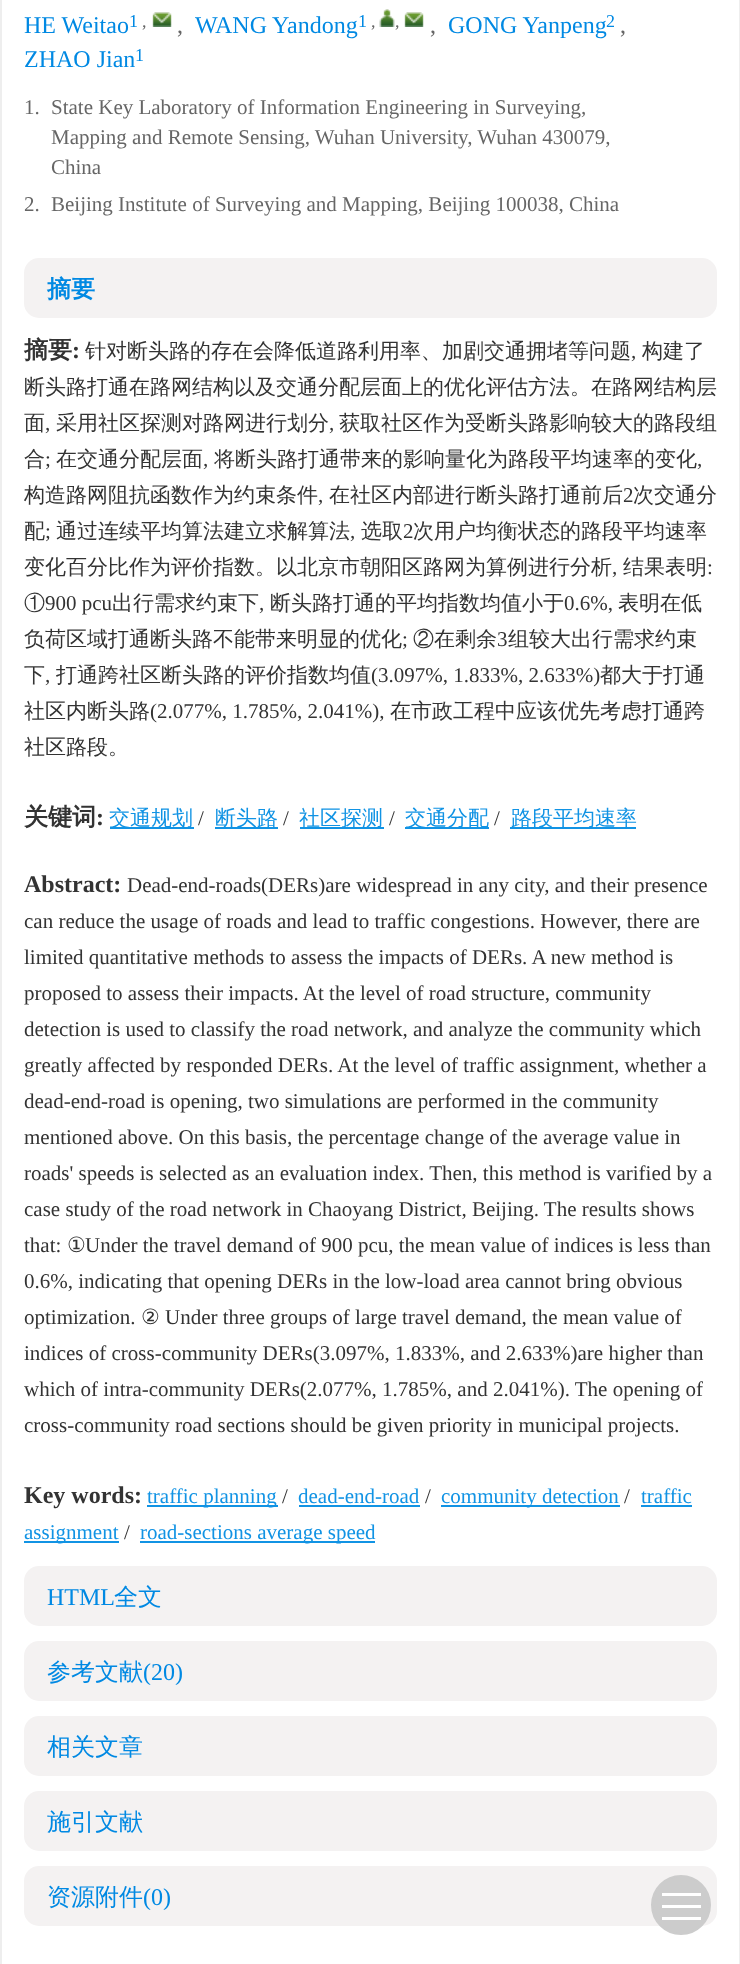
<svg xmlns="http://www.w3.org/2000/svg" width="740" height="1964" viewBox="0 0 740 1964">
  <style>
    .t1 { font: 24px Liberation Serif; fill: #0089e3; }
    .t2 { font: 18px Liberation Serif; fill: #0089e3; }
    .t3 { font: 18px Liberation Serif; fill: #666; }
    .t4 { font: 24px Liberation Serif; fill: #666; }
    .t5 { font: 21px Liberation Serif; fill: #666; }
    .t6 { font: bold 24px WenQuanYi Zen Hei; fill: #0089e3; }
    .t7 { font: bold 24px WenQuanYi Zen Hei; fill: #333; }
    .t8 { font: bold 24px Liberation Serif; fill: #333; }
    .t9 { font: 500 21px WenQuanYi Zen Hei; fill: #333; }
    .t10 { font: 21px Liberation Serif; fill: #333; }
    .t11 { font: 500 21px WenQuanYi Zen Hei; fill: #1193e4; }
    .t12 { font: 21px DejaVu Sans; fill: #333; }
    .t13 { font: 21px Liberation Serif; fill: #1193e4; }
    .t14 { font: 500 24px WenQuanYi Zen Hei; fill: #0089e3; }
  </style>
  <rect width="100%" height="100%" fill="#fff"/>
  <rect x="1" y="-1" width="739" height="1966" fill="none" stroke="#eee" stroke-width="2"/>
  <text x="24" y="33" class="t1">HE Weitao</text>
  <text x="129" y="27" class="t2">1</text>
  <image x="152" y="12" width="20" height="15" href="images/1.png"/>
  <text x="142" y="27" class="t3">,</text>
  <text x="177" y="33" class="t4">,</text>
  <text x="195" y="33" class="t1">WANG Yandong</text>
  <text x="358" y="27" class="t2">1</text>
  <image x="379" y="9" width="16" height="18" href="images/2.png"/>
  <image x="404" y="12" width="20" height="15" href="images/3.png"/>
  <text x="371" y="27" class="t3">,</text>
  <text x="395" y="27" class="t3">,</text>
  <text x="430" y="33" class="t4">,</text>
  <text x="448" y="33" class="t1">GONG Yanpeng</text>
  <text x="606" y="27" class="t2">2</text>
  <text x="620" y="33" class="t4">,</text>
  <text x="24" y="67" class="t1">ZHAO Jian</text>
  <text x="135" y="61" class="t2">1</text>
  <text x="24" y="114" class="t5">1.</text>
  <text x="51" y="114" class="t5">State Key Laboratory of Information Engineering in Surveying,</text>
  <text x="51" y="144" class="t5">Mapping and Remote Sensing, Wuhan University, Wuhan 430079,</text>
  <text x="51" y="174" class="t5">China</text>
  <text x="24" y="211" class="t5">2.</text>
  <text x="51" y="211" class="t5">Beijing Institute of Surveying and Mapping, Beijing 100038, China</text>
  <rect x="24" y="258" width="693" height="60" rx="15" fill="#f4f2f2"/>
  <text x="47" y="297" class="t6">摘要</text>
  <text x="24" y="358" class="t7">摘要</text>
  <text x="72" y="358" class="t8">:</text>
  <text x="85" y="358" class="t9">针对断头路的存在会降低道路利用率、加剧交通拥堵等问题</text>
  <text x="631" y="358" class="t10">,</text>
  <text x="642" y="358" class="t9">构建了</text>
  <text x="24" y="394" class="t9">断头路打通在路网结构以及交通分配层面上的优化评估方法。在路网结构层</text>
  <text x="24" y="430" class="t9">面</text>
  <text x="45" y="430" class="t10">,</text>
  <text x="56" y="430" class="t9">采用社区探测对路网进行划分</text>
  <text x="329" y="430" class="t10">,</text>
  <text x="339" y="430" class="t9">获取社区作为受断头路影响较大的路段组</text>
  <text x="24" y="466" class="t9">合</text>
  <text x="45" y="466" class="t10">;</text>
  <text x="56" y="466" class="t9">在交通分配层面</text>
  <text x="203" y="466" class="t10">,</text>
  <text x="214" y="466" class="t9">将断头路打通带来的影响量化为路段平均速率的变化</text>
  <text x="697" y="466" class="t10">,</text>
  <text x="24" y="502" class="t9">构造路网阻抗函数作为约束条件</text>
  <text x="318" y="502" class="t10">,</text>
  <text x="329" y="502" class="t9">在社区内部进行断头路打通前后</text>
  <text x="623" y="502" class="t10">2</text>
  <text x="633" y="502" class="t9">次交通分</text>
  <text x="24" y="538" class="t9">配</text>
  <text x="45" y="538" class="t10">;</text>
  <text x="56" y="538" class="t9">通过连续平均算法建立求解算法</text>
  <text x="350" y="538" class="t10">,</text>
  <text x="361" y="538" class="t9">选取</text>
  <text x="403" y="538" class="t10">2</text>
  <text x="413" y="538" class="t9">次用户均衡状态的路段平均速率</text>
  <text x="24" y="574" class="t9">变化百分比作为评价指数。以北京市朝阳区路网为算例进行分析</text>
  <text x="612" y="574" class="t10">,</text>
  <text x="623" y="574" class="t9">结果表明</text>
  <text x="707" y="574" class="t10">:</text>
  <text x="24" y="610" class="t9">①</text>
  <text x="45" y="610" class="t10">900 pcu</text>
  <text x="112" y="610" class="t9">出行需求约束下</text>
  <text x="259" y="610" class="t10">,</text>
  <text x="270" y="610" class="t9">断头路打通的平均指数均值小于</text>
  <text x="564" y="610" class="t10">0.6%,</text>
  <text x="618" y="610" class="t9">表明在低</text>
  <text x="24" y="646" class="t9">负荷区域打通断头路不能带来明显的优化</text>
  <text x="402" y="646" class="t10">;</text>
  <text x="413" y="646" class="t9">②在剩余</text>
  <text x="497" y="646" class="t10">3</text>
  <text x="508" y="646" class="t9">组较大出行需求约束</text>
  <text x="24" y="682" class="t9">下</text>
  <text x="45" y="682" class="t10">,</text>
  <text x="56" y="682" class="t9">打通跨社区断头路的评价指数均值</text>
  <text x="371" y="682" class="t10">(3.097%, 1.833%, 2.633%)</text>
  <text x="600" y="682" class="t9">都大于打通</text>
  <text x="24" y="718" class="t9">社区内断头路</text>
  <text x="150" y="718" class="t10">(2.077%, 1.785%, 2.041%),</text>
  <text x="390" y="718" class="t9">在市政工程中应该优先考虑打通跨</text>
  <text x="24" y="754" class="t9">社区路段。</text>
  <text x="24" y="825" class="t7">关键词</text>
  <text x="96" y="825" class="t8">:</text>
  <rect x="110" y="827" width="84" height="2" fill="#1193e4"/>
  <text x="109" y="825" class="t11">交通规划</text>
  <text x="198" y="825" class="t10">/</text>
  <rect x="215" y="827" width="63" height="2" fill="#1193e4"/>
  <text x="215" y="825" class="t11">断头路</text>
  <text x="283" y="825" class="t10">/</text>
  <rect x="300" y="827" width="84" height="2" fill="#1193e4"/>
  <text x="299" y="825" class="t11">社区探测</text>
  <text x="389" y="825" class="t10">/</text>
  <rect x="405" y="827" width="84" height="2" fill="#1193e4"/>
  <text x="405" y="825" class="t11">交通分配</text>
  <text x="494" y="825" class="t10">/</text>
  <rect x="510" y="827" width="126" height="2" fill="#1193e4"/>
  <text x="511" y="825" class="t11">路段平均速率</text>
  <text x="24" y="892" class="t8">Abstract:</text>
  <text x="127" y="892" class="t10">Dead-end-roads(DERs)are widespread in any city, and their presence</text>
  <text x="24" y="928" class="t10">can reduce the usage of roads and lead to traffic congestions. However, there are</text>
  <text x="24" y="964" class="t10">limited quantitative methods to assess the impacts of DERs. A new method is</text>
  <text x="24" y="1000" class="t10">proposed to assess their impacts. At the level of road structure, community</text>
  <text x="24" y="1036" class="t10">detection is used to classify the road network, and analyze the community which</text>
  <text x="24" y="1072" class="t10">greatly affected by responded DERs. At the level of traffic assignment, whether a</text>
  <text x="24" y="1108" class="t10">dead-end-road is opening, two simulations are performed in the community</text>
  <text x="24" y="1144" class="t10">mentioned above. On this basis, the percentage change of the average value in</text>
  <text x="24" y="1180" class="t10">roads' speeds is selected as an evaluation index. Then, this method is varified by a</text>
  <text x="24" y="1216" class="t10">case study of the road network in Chaoyang District, Beijing. The results shows</text>
  <text x="24" y="1252" class="t10">that:</text>
  <text x="67" y="1252" class="t12">①</text>
  <text x="85" y="1252" class="t10">Under the travel demand of 900 pcu, the mean value of indices is less than</text>
  <text x="24" y="1288" class="t10">0.6%, indicating that opening DERs in the low-load area cannot bring obvious</text>
  <text x="24" y="1324" class="t10">optimization.</text>
  <text x="141" y="1324" class="t12">②</text>
  <text x="165" y="1324" class="t10">Under three groups of large travel demand, the mean value of</text>
  <text x="24" y="1360" class="t10">indices of cross-community DERs(3.097%, 1.833%, and 2.633%)are higher than</text>
  <text x="24" y="1396" class="t10">which of intra-community DERs(2.077%, 1.785%, and 2.041%). The opening of</text>
  <text x="24" y="1432" class="t10">cross-community road sections should be given priority in municipal projects.</text>
  <text x="24" y="1503" class="t8">Key words:</text>
  <rect x="147" y="1505" width="131" height="2" fill="#1193e4"/>
  <text x="147" y="1503" class="t13">traffic planning</text>
  <text x="282" y="1503" class="t10">/</text>
  <text x="298" y="1503" class="t13">dead-end-road</text>
  <rect x="299" y="1505" width="121" height="2" fill="#1193e4"/>
  <text x="425" y="1503" class="t10">/</text>
  <rect x="441" y="1505" width="179" height="2" fill="#1193e4"/>
  <text x="441" y="1503" class="t13">community detection</text>
  <text x="624" y="1503" class="t10">/</text>
  <text x="641" y="1503" class="t13">traffic</text>
  <rect x="641" y="1505" width="51" height="2" fill="#1193e4"/>
  <rect x="24" y="1541" width="95" height="2" fill="#1193e4"/>
  <text x="24" y="1539" class="t13">assignment</text>
  <text x="124" y="1539" class="t10">/</text>
  <rect x="140" y="1541" width="235" height="2" fill="#1193e4"/>
  <text x="140" y="1539" class="t13">road-sections average speed</text>
  <rect x="24" y="1566" width="693" height="60" rx="15" fill="#f4f2f2"/>
  <text x="47" y="1605" class="t1">HTML</text>
  <text x="114" y="1605" class="t14">全文</text>
  <rect x="24" y="1641" width="693" height="60" rx="15" fill="#f4f2f2"/>
  <text x="47" y="1680" class="t14">参考文献</text>
  <text x="143" y="1680" class="t1">(20)</text>
  <rect x="24" y="1716" width="693" height="60" rx="15" fill="#f4f2f2"/>
  <text x="47" y="1755" class="t14">相关文章</text>
  <rect x="24" y="1791" width="693" height="60" rx="15" fill="#f4f2f2"/>
  <text x="47" y="1830" class="t14">施引文献</text>
  <rect x="24" y="1866" width="693" height="60" rx="15" fill="#f4f2f2"/>
  <text x="47" y="1905" class="t14">资源附件</text>
  <text x="143" y="1905" class="t1">(0)</text>
  <circle cx="681" cy="1905" r="29" fill="#ccc" stroke="#ccc" stroke-width="2"/>
  <rect x="662" y="1893" width="39" height="3" fill="#fff"/>
  <rect x="662" y="1905" width="39" height="3" fill="#fff"/>
  <rect x="662" y="1917" width="39" height="3" fill="#fff"/>
</svg>
